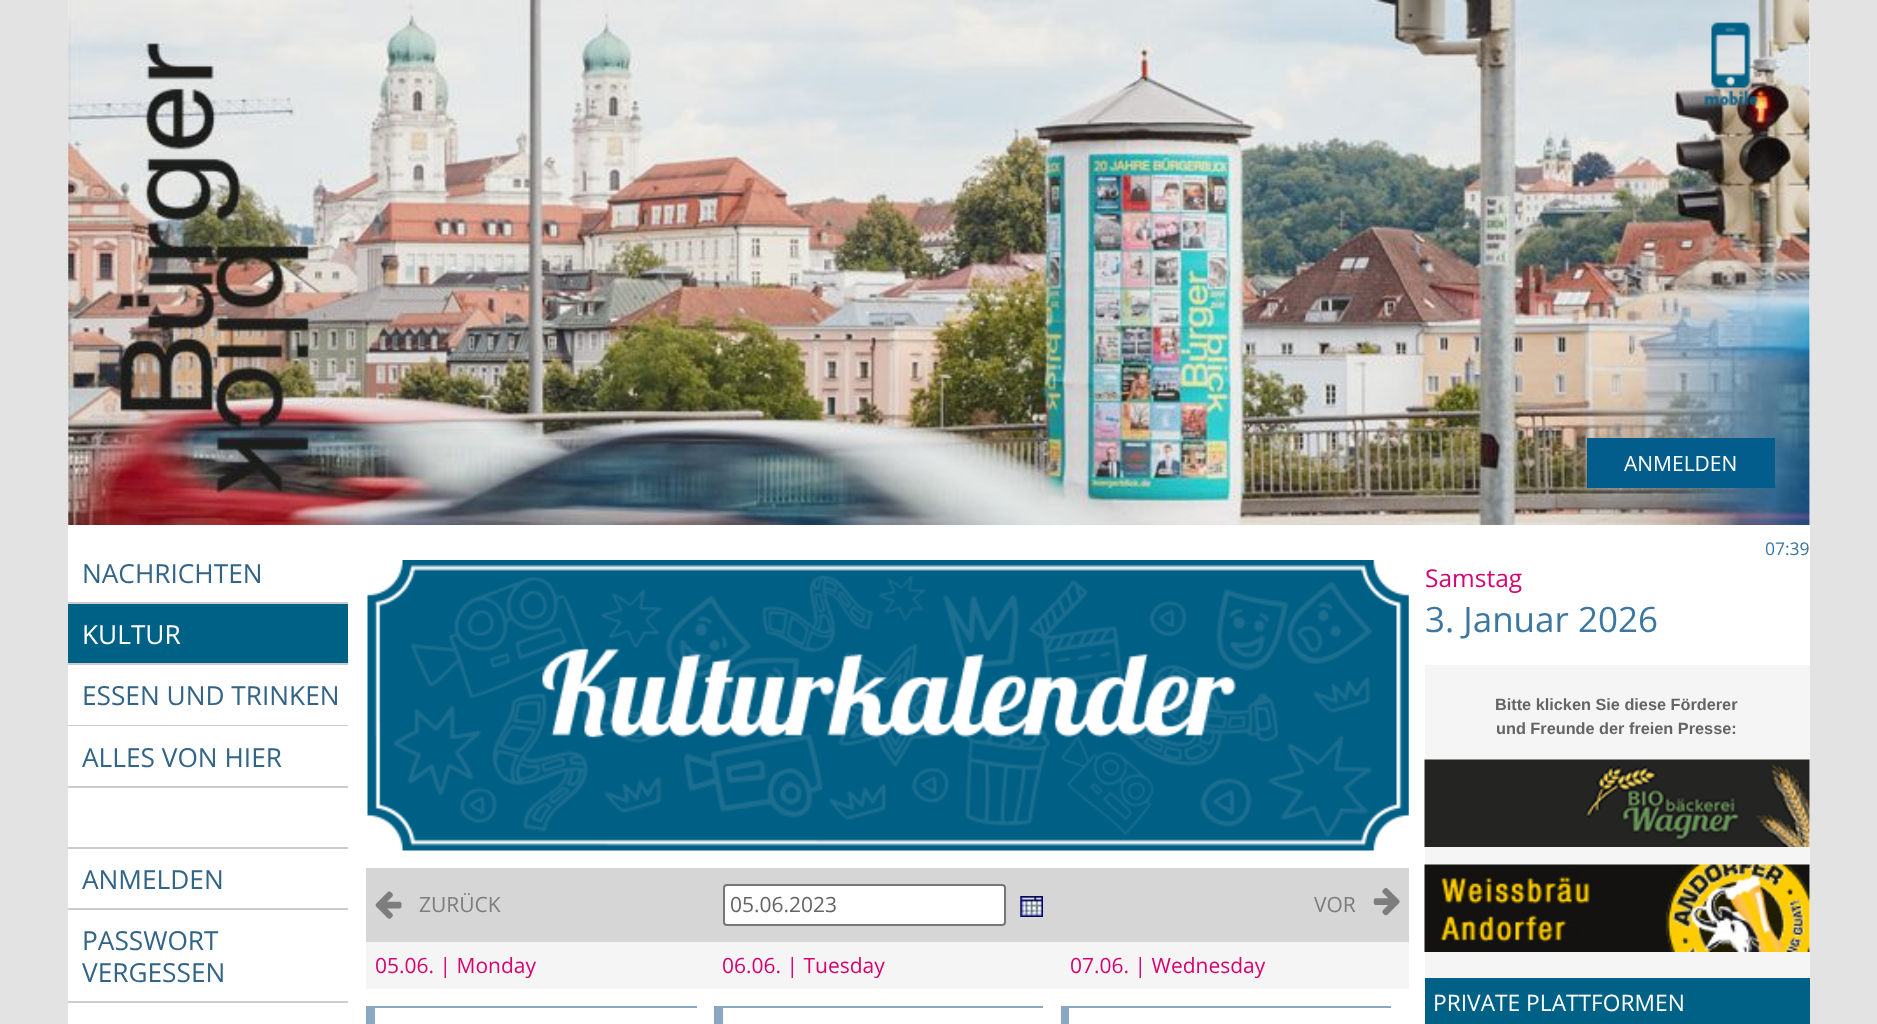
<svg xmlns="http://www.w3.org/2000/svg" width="1877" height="1024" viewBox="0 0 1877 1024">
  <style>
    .t1 { font: 21px Open Sans; fill: #fff; }
    .t2 { font: 26.25px Open Sans; fill: #326487; }
    .t3 { font: 26.25px Open Sans; fill: #fff; }
    .t4 { font: 21px Open Sans; fill: #7d7d7d; }
    .t5 { font: 21px Open Sans; fill: #646464; }
    .t6 { font: 21px Open Sans; fill: #d50470; }
    .t7 { font: 17.5px Open Sans; fill: #3c77a1; }
    .t8 { font: 24.5px Open Sans; fill: #d50470; }
    .t9 { font: 35px Open Sans; fill: #3c77a1; }
    .t10 { font: bold 16.3px Liberation Sans; fill: #646464; }
    .t11 { font: 22.75px Open Sans; fill: #fff; }
  </style>
  <rect width="100%" height="100%" fill="#e3e3e3"/>
  <rect x="68" y="0" width="1742" height="525" fill="#fff"/>
  <image x="68" y="0" width="1742" height="525" href="images/1.png"/>
  <image x="1704" y="22" width="54" height="84" href="images/2.png"/>
  <rect x="1587" y="438" width="188" height="50" fill="#025d8c"/>
  <text x="1624" y="471" class="t1">ANMELDEN</text>
  <rect x="68" y="525" width="1357" height="499" fill="#fff"/>
  <rect x="68" y="602" width="280" height="2" fill="#ccc"/>
  <text x="82" y="583" class="t2">NACHRICHTEN</text>
  <rect x="68" y="604" width="280" height="59" fill="#006186"/>
  <rect x="68" y="663" width="280" height="2" fill="#ccc"/>
  <text x="82" y="644" class="t3">KULTUR</text>
  <rect x="68" y="725" width="280" height="1" fill="#ccc"/>
  <text x="82" y="705" class="t2">ESSEN UND TRINKEN</text>
  <rect x="68" y="786" width="280" height="2" fill="#ccc"/>
  <text x="82" y="767" class="t2">ALLES VON HIER</text>
  <rect x="68" y="847" width="280" height="2" fill="#ccc"/>
  <rect x="68" y="908" width="280" height="2" fill="#ccc"/>
  <text x="82" y="889" class="t2">ANMELDEN</text>
  <rect x="68" y="1001" width="280" height="2" fill="#ccc"/>
  <text x="82" y="950" class="t2">PASSWORT</text>
  <text x="82" y="982" class="t2">VERGESSEN</text>
  <image x="367" y="560" width="1042" height="291" href="images/3.png"/>
  <rect x="366" y="868" width="1043" height="74" fill="#d6d6d6"/>
  <image x="375" y="891" width="27" height="28" href="images/4.png"/>
  <text x="419" y="912" class="t4">ZURÜCK</text>
  <rect x="724" y="885" width="281" height="40" rx="3" fill="#fff" stroke="#767676" stroke-width="2"/>
  <text x="730" y="912" class="t5">05.06.2023</text>
  <image x="1020" y="896" width="23" height="21" href="images/5.png"/>
  <text x="1314" y="912" class="t4">VOR</text>
  <image x="1373" y="888" width="27" height="28" href="images/6.png"/>
  <rect x="366" y="942" width="1043" height="47" fill="#f5f5f5"/>
  <text x="375" y="973" class="t6">05.06. | Monday</text>
  <rect x="375" y="1006" width="322" height="2" fill="#8aa8c4"/>
  <rect x="366" y="1006" width="9" height="18" fill="#8aa8c4"/>
  <text x="722" y="973" class="t6">06.06. | Tuesday</text>
  <rect x="723" y="1006" width="320" height="2" fill="#8aa8c4"/>
  <rect x="714" y="1006" width="9" height="18" fill="#8aa8c4"/>
  <text x="1070" y="973" class="t6">07.06. | Wednesday</text>
  <rect x="1061" y="1006" width="330" height="2" fill="#8aa8c4"/>
  <rect x="1061" y="1006" width="8" height="18" fill="#8aa8c4"/>
  <rect x="1425" y="665" width="385" height="313" fill="#f5f5f5"/>
  <rect x="1425" y="525" width="385" height="140" fill="#fff"/>
  <text x="1765" y="555" class="t7">07:39</text>
  <text x="1425" y="587" class="t8">Samstag</text>
  <text x="1425" y="632" class="t9">3. Januar 2026</text>
  <text x="1495" y="710" class="t10">Bitte klicken Sie diese Förderer</text>
  <text x="1496" y="734" class="t10">und Freunde der freien Presse:</text>
  <image x="1424" y="759" width="386" height="88" href="images/7.png"/>
  <image x="1424" y="864" width="386" height="88" href="images/8.png"/>
  <rect x="1425" y="978" width="385" height="46" fill="#006186"/>
  <text x="1433" y="1011" class="t11">PRIVATE PLATTFORMEN</text>
</svg>
